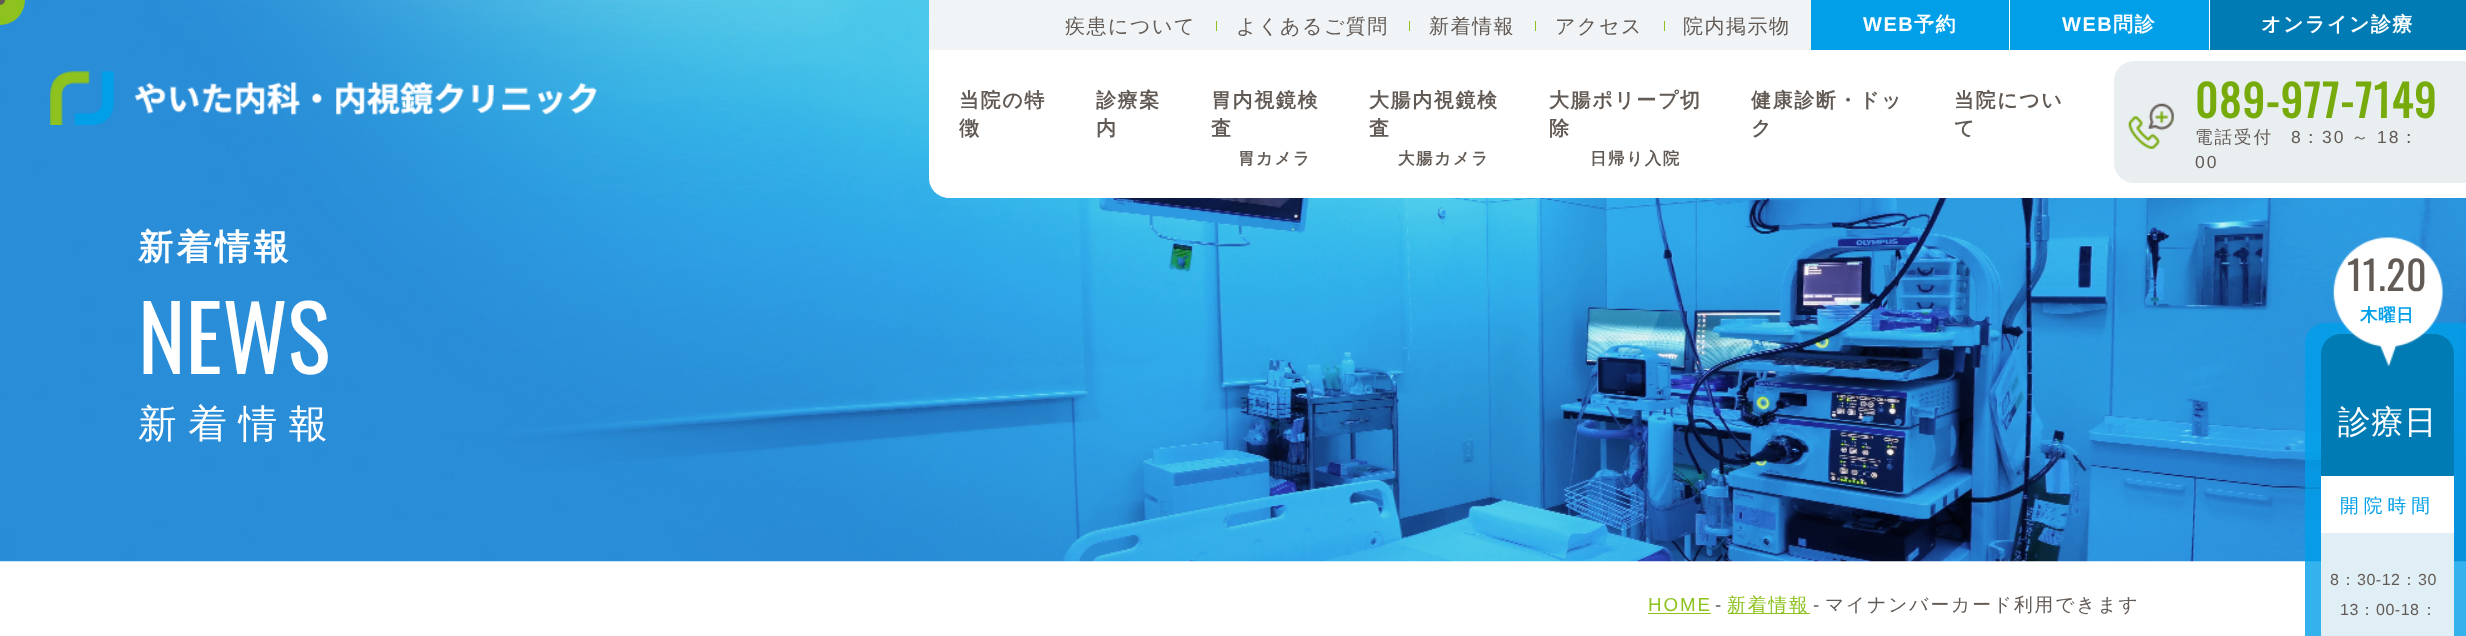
<svg xmlns="http://www.w3.org/2000/svg" width="2466" height="636" viewBox="0 0 2466 636">
  <style>
    .t1 { font: 500 20px WenQuanYi Zen Hei; letter-spacing: 1.5px; fill: #625a54; }
    .t2 { font: bold 20px Liberation Sans; letter-spacing: 1.5px; fill: #fff; }
    .t3 { font: bold 20px WenQuanYi Zen Hei; letter-spacing: 1.5px; fill: #fff; }
    .t4 { font: bold 20px WenQuanYi Zen Hei; letter-spacing: 1.6px; fill: #625a54; }
    .t5 { font: bold 16.5px WenQuanYi Zen Hei; letter-spacing: 1.6px; fill: #625a54; }
    .t6 { font: bold 43.5px Oswald; letter-spacing: 1.6px; fill: #77ab0c; }
    .t7 { font: 500 17.5px WenQuanYi Zen Hei; letter-spacing: 2px; fill: #625a54; }
    .t8 { font: 17.5px Liberation Sans; letter-spacing: 2px; fill: #625a54; }
    .t9 { font: bold 35px WenQuanYi Zen Hei; letter-spacing: 3.5px; fill: #fff; }
    .t10 { font: 90px Oswald; fill: #fff; }
    .t11 { font: 500 38.75px WenQuanYi Zen Hei; letter-spacing: 11.5px; fill: #fff; }
    .t12 { font: 18.75px Liberation Sans; letter-spacing: 1.9px; fill: #8dc21f; }
    .t13 { font: 18.75px Liberation Sans; letter-spacing: 1.9px; fill: #625a54; }
    .t14 { font: 500 18.75px WenQuanYi Zen Hei; letter-spacing: 1.9px; fill: #8dc21f; }
    .t15 { font: 500 18.75px WenQuanYi Zen Hei; letter-spacing: 1.9px; fill: #625a54; }
    .t16 { font: 40px Oswald; letter-spacing: 0.5px; fill: #625a54; }
    .t17 { font: bold 17.5px WenQuanYi Zen Hei; letter-spacing: 0.5px; fill: #009fe8; }
    .t18 { font: 500 32.5px WenQuanYi Zen Hei; letter-spacing: 0.5px; fill: #fff; }
    .t19 { font: 500 18.75px WenQuanYi Zen Hei; letter-spacing: 5px; fill: #009fe8; }
    .t20 { font: 16px Liberation Sans; letter-spacing: 0.5px; fill: #625a54; }
    .t21 { font: 500 16px WenQuanYi Zen Hei; letter-spacing: 0.5px; fill: #625a54; }
  </style>
  <rect width="100%" height="100%" fill="#fff"/>
  <image x="0" y="0" width="2466" height="562" href="images/3.png"/>
  <circle cx="0" cy="0" r="25" fill="#8dc21f"/>
  <circle cx="0" cy="0" r="5" fill="#625a54"/>
  <image x="50" y="71" width="548" height="54" href="images/1.png"/>
  <path d="M929 0H2466V198H949C938 198 929 189 929 178Z" fill="#fff"/>
  <rect x="929" y="0" width="882" height="50" fill="#f1f4f6"/>
  <text x="1065" y="33" class="t1">疾患について</text>
  <rect x="1216" y="21" width="1" height="10" fill="#8dc21f"/>
  <text x="1236" y="33" class="t1">よくあるご質問</text>
  <rect x="1409" y="21" width="1" height="10" fill="#8dc21f"/>
  <text x="1429" y="33" class="t1">新着情報</text>
  <rect x="1535" y="21" width="1" height="10" fill="#8dc21f"/>
  <text x="1555" y="33" class="t1">アクセス</text>
  <rect x="1664" y="21" width="1" height="10" fill="#8dc21f"/>
  <text x="1683" y="33" class="t1">院内掲示物</text>
  <rect x="1811" y="0" width="198" height="50" fill="#009fe8"/>
  <text x="1863" y="31" class="t2">WEB</text>
  <text x="1914" y="31" class="t3">予約</text>
  <rect x="2010" y="0" width="199" height="50" fill="#009fe8"/>
  <text x="2062" y="31" class="t2">WEB</text>
  <text x="2113" y="31" class="t3">問診</text>
  <rect x="2210" y="0" width="256" height="50" fill="#007bb4"/>
  <text x="2261" y="31" class="t3">オンライン診療</text>
  <text x="959" y="107" class="t4">当院の特</text>
  <text x="959" y="135" class="t4">徴</text>
  <text x="1096" y="107" class="t4">診療案</text>
  <text x="1096" y="135" class="t4">内</text>
  <text x="1211" y="107" class="t4">胃内視鏡検</text>
  <text x="1211" y="135" class="t4">査</text>
  <text x="1238" y="164" class="t5">胃カメラ</text>
  <text x="1369" y="107" class="t4">大腸内視鏡検</text>
  <text x="1369" y="135" class="t4">査</text>
  <text x="1398" y="164" class="t5">大腸カメラ</text>
  <text x="1549" y="107" class="t4">大腸ポリープ切</text>
  <text x="1549" y="135" class="t4">除</text>
  <text x="1590" y="164" class="t5">日帰り入院</text>
  <text x="1751" y="107" class="t4">健康診断・ドッ</text>
  <text x="1751" y="135" class="t4">ク</text>
  <text x="1954" y="107" class="t4">当院につい</text>
  <text x="1954" y="135" class="t4">て</text>
  <path d="M2134 61H2466V183H2134C2123 183 2114 174 2114 163V81C2114 70 2123 61 2134 61Z" fill="#e9eef1"/>
  <image x="2128" y="103" width="46" height="46" href="images/2.png"/>
  <text x="2195" y="118" class="t6">089-977-7149</text>
  <text x="2195" y="143" class="t7">電話受付</text>
  <text x="2291" y="143" class="t8">8</text>
  <text x="2302" y="143" class="t7">：</text>
  <text x="2322" y="143" class="t8">30</text>
  <text x="2351" y="143" class="t7">～</text>
  <text x="2377" y="143" class="t8">18</text>
  <text x="2400" y="143" class="t7">：</text>
  <text x="2195" y="168" class="t8">00</text>
  <text x="138" y="259" class="t9">新着情報</text>
  <text x="138" y="374" class="t10">NEWS</text>
  <text x="138" y="437" class="t11">新着情報</text>
  <text x="1648" y="611" class="t12">HOME</text>
  <rect x="1648" y="613" width="63" height="1" fill="#8dc21f"/>
  <text x="1715" y="611" class="t13">-</text>
  <rect x="1728" y="613" width="82" height="1" fill="#8dc21f"/>
  <text x="1727" y="611" class="t14">新着情報</text>
  <text x="1813" y="611" class="t13">-</text>
  <text x="1825" y="611" class="t15">マイナンバーカード利用できます</text>
  <path d="M2325 323H2466V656H2325C2314 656 2305 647 2305 636V343C2305 332 2314 323 2325 323Z" fill="#009fe8cc"/>
  <rect x="2321" y="339" width="133" height="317" rx="20" fill="#e0eff6"/>
  <path d="M2341 334H2434C2445 334 2454 343 2454 354V476H2321V354C2321 343 2330 334 2341 334Z" fill="#007bb4"/>
  <image x="2333" y="237" width="110" height="130" href="images/4.png"/>
  <text x="2347" y="291" class="t16">11.20</text>
  <text x="2360" y="321" class="t17">木曜日</text>
  <text x="2338" y="433" class="t18">診療日</text>
  <rect x="2321" y="476" width="133" height="57" fill="#fff"/>
  <text x="2340" y="512" class="t19">開院時間</text>
  <text x="2330" y="585" class="t20">8</text>
  <text x="2340" y="585" class="t21">：</text>
  <text x="2357" y="585" class="t20">30-12</text>
  <text x="2401" y="585" class="t21">：</text>
  <text x="2418" y="585" class="t20">30</text>
  <text x="2340" y="615" class="t20">13</text>
  <text x="2359" y="615" class="t21">：</text>
  <text x="2376" y="615" class="t20">00-18</text>
  <text x="2421" y="615" class="t21">：</text>
</svg>
